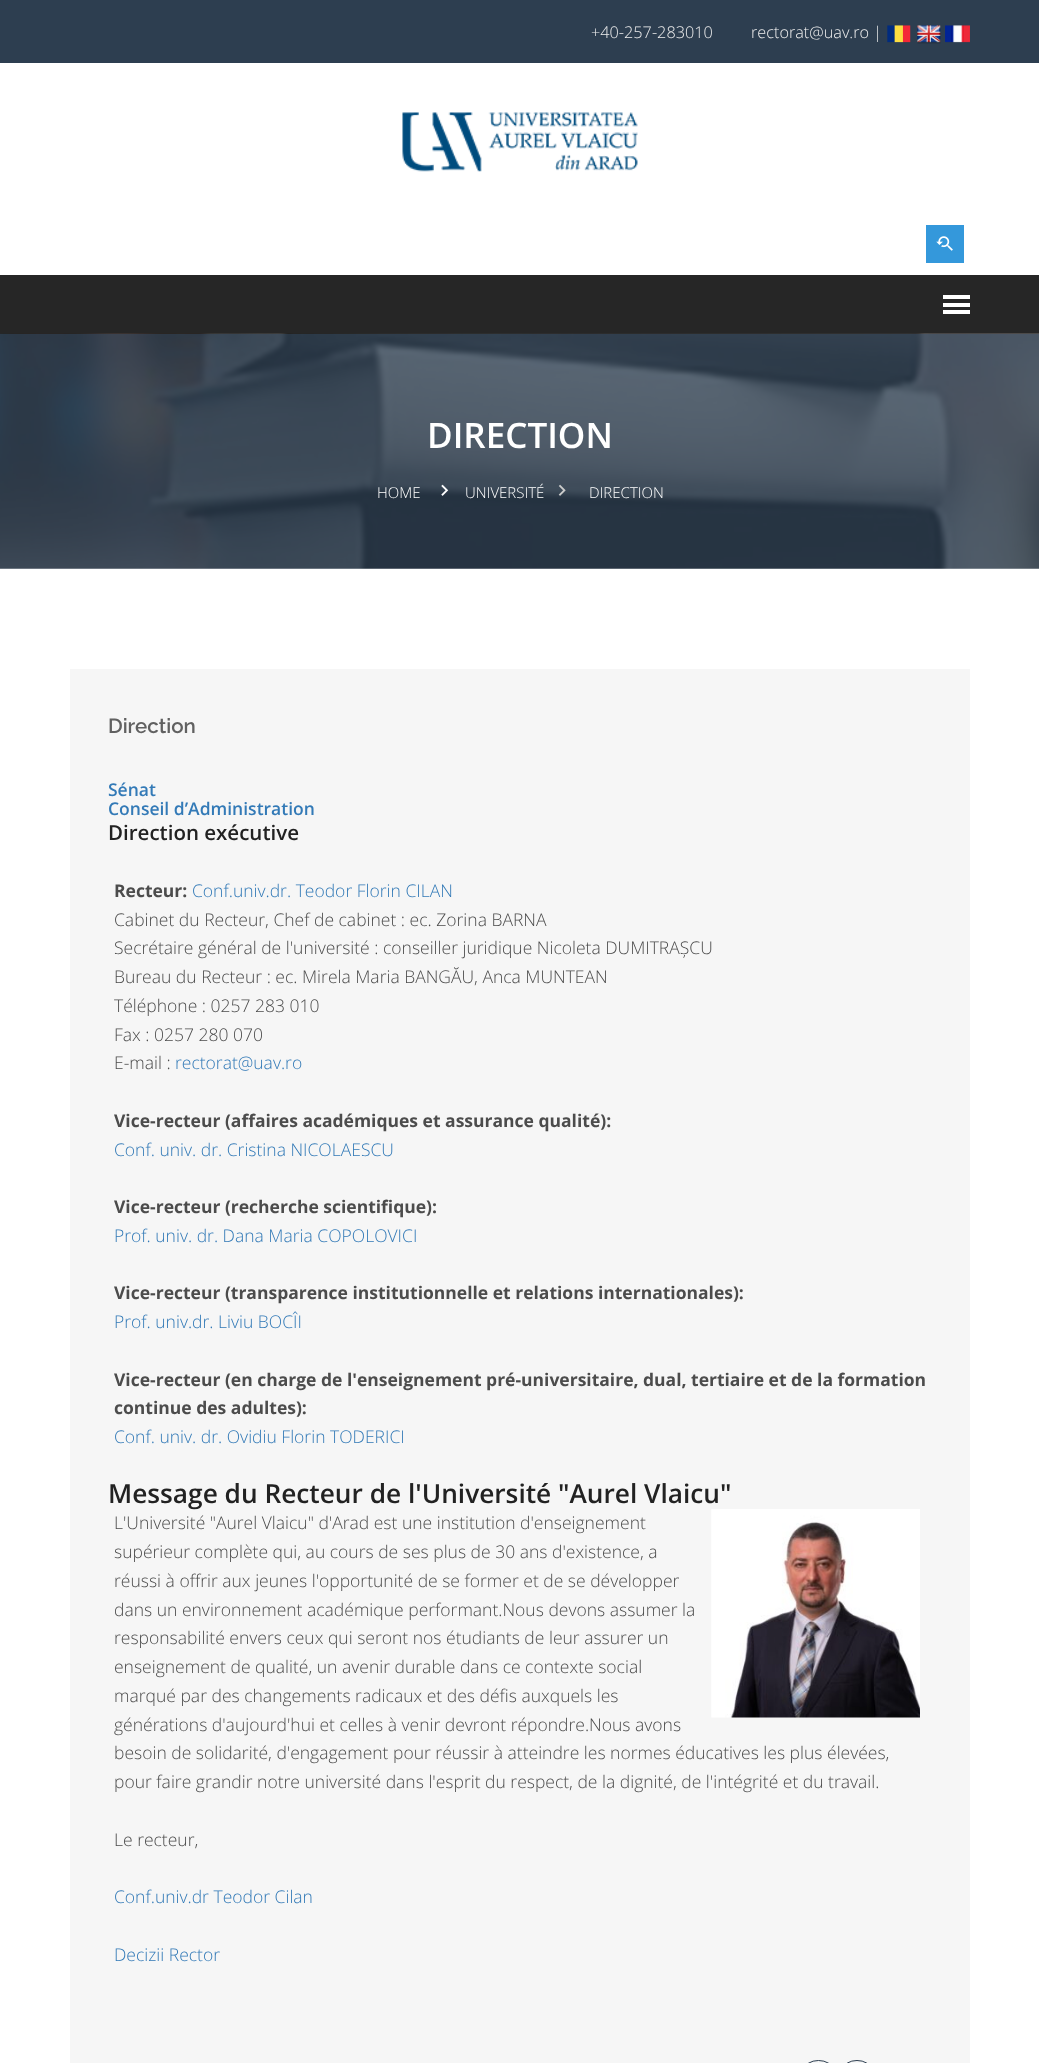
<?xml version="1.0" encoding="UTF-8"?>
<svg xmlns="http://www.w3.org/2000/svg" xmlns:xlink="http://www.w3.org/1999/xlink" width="1039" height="2063">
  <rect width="100%" height="100%" fill="#ffffff" />
  <rect width="1039" height="63" fill="#2d3e50" />
  <image x="887" y="25" width="24" height="18" xlink:href="image1.png" />
  <image x="917" y="25" width="24" height="19" xlink:href="image2.png" />
  <image x="945" y="25" width="25" height="18" xlink:href="image3.png" />
  <image x="402" y="112" width="236" height="60" xlink:href="image4.png" />
  <rect x="926" y="225" width="38" height="38" fill="#3498db" />
  <image x="936" y="236" width="17" height="15" xlink:href="image5.png" />
  <rect y="275" width="1039" height="59" fill="#262626" />
  <rect x="943" y="295" width="27" height="4" fill="#ffffff" />
  <rect x="943" y="303" width="27" height="4" fill="#ffffff" />
  <rect x="943" y="310" width="27" height="4" fill="#ffffff" />
  <image x="0" y="333" width="1039" height="236" xlink:href="image6.png" />
  <image x="441" y="484" width="8" height="12" xlink:href="image7.png" />
  <image x="558" y="484" width="8" height="12" xlink:href="image8.png" />
  <rect x="70" y="669" width="900" height="1394" fill="#f6f6f6" />
  <image x="711" y="1509" width="209" height="209" xlink:href="image9.png" />
  <rect x="804.5" y="2060.5" width="28" height="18" rx="14" fill="none" stroke="#2d3e50" />
  <rect x="843.5" y="2060.5" width="27" height="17" rx="13.5" fill="none" stroke="#2d3e50" />
  <text x="591" y="38" style="font-family: Open Sans; font-size: 16.25px; font-weight: 300; fill: #ededed">+40-257-283010</text>
  <text x="751" y="38" style="font-family: Open Sans; font-size: 16.25px; font-weight: 300; fill: #ededed">rectorat@uav.ro |</text>
  <text x="427" y="448" style="font-family: Open Sans; font-size: 35px; font-weight: 600; fill: #ffffff">DIRECTION</text>
  <text x="377" y="498" style="font-family: Open Sans; font-size: 15px; font-weight: 300; fill: #ffffff">HOME</text>
  <text x="465" y="498" style="font-family: Open Sans; font-size: 15px; font-weight: 300; fill: #ffffff">UNIVERSITÉ</text>
  <text x="589" y="498" style="font-family: Open Sans; font-size: 15px; font-weight: 300; fill: #ffffff">DIRECTION</text>
  <text x="108" y="733" style="font-family: Raleway; font-size: 20.5px; font-weight: 600; fill: #616161">Direction</text>
  <text x="108" y="796" style="font-family: Open Sans; font-size: 17.5px; font-weight: 600; fill: #337ab7">Sénat</text>
  <text x="108" y="815" style="font-family: Open Sans; font-size: 17.5px; font-weight: 600; fill: #337ab7">Conseil d’Administration</text>
  <text x="108" y="840" style="font-family: Open Sans; font-size: 20.5px; font-weight: 600; fill: #222222">Direction exécutive</text>
  <text x="114" y="897" style="font-family: Open Sans; font-size: 17.5px; font-weight: bold; fill: #4c4c4c">Recteur:</text>
  <text x="192" y="897" style="font-family: Open Sans; font-size: 17.5px; font-weight: 300; fill: #337ab7">Conf.univ.dr. Teodor Florin CILAN</text>
  <text x="114" y="926" style="font-family: Open Sans; font-size: 17.5px; font-weight: 300; fill: #4c4c4c">Cabinet du Recteur, Chef de cabinet : ec. Zorina BARNA</text>
  <text x="114" y="954" style="font-family: Open Sans; font-size: 17.5px; font-weight: 300; fill: #4c4c4c">Secrétaire général de l'université : conseiller juridique Nicoleta DUMITRAȘCU</text>
  <text x="114" y="983" style="font-family: Open Sans; font-size: 17.5px; font-weight: 300; fill: #4c4c4c">Bureau du Recteur : ec. Mirela Maria BANGĂU, Anca MUNTEAN</text>
  <text x="114" y="1012" style="font-family: Open Sans; font-size: 17.5px; font-weight: 300; fill: #4c4c4c">Téléphone : 0257 283 010</text>
  <text x="114" y="1041" style="font-family: Open Sans; font-size: 17.5px; font-weight: 300; fill: #4c4c4c">Fax : 0257 280 070</text>
  <text x="114" y="1069" style="font-family: Open Sans; font-size: 17.5px; font-weight: 300; fill: #4c4c4c">E-mail :</text>
  <text x="175" y="1069" style="font-family: Open Sans; font-size: 17.5px; font-weight: 300; fill: #337ab7">rectorat@uav.ro</text>
  <text x="114" y="1127" style="font-family: Open Sans; font-size: 17.5px; font-weight: bold; fill: #4c4c4c">Vice-recteur (affaires académiques et assurance qualité):</text>
  <text x="114" y="1156" style="font-family: Open Sans; font-size: 17.5px; font-weight: 300; fill: #337ab7">Conf. univ. dr. Cristina NICOLAESCU</text>
  <text x="114" y="1213" style="font-family: Open Sans; font-size: 17.5px; font-weight: bold; fill: #4c4c4c">Vice-recteur (recherche scientifique):</text>
  <text x="114" y="1242" style="font-family: Open Sans; font-size: 17.5px; font-weight: 300; fill: #337ab7">Prof. univ. dr. Dana Maria COPOLOVICI</text>
  <text x="114" y="1299" style="font-family: Open Sans; font-size: 17.5px; font-weight: bold; fill: #4c4c4c">Vice-recteur (transparence institutionnelle et relations internationales):</text>
  <text x="114" y="1328" style="font-family: Open Sans; font-size: 17.5px; font-weight: 300; fill: #337ab7">Prof. univ.dr. Liviu BOCÎI</text>
  <text x="114" y="1386" style="font-family: Open Sans; font-size: 17.5px; font-weight: bold; fill: #4c4c4c">Vice-recteur (en charge de l'enseignement pré-universitaire, dual, tertiaire et de la formation</text>
  <text x="114" y="1414" style="font-family: Open Sans; font-size: 17.5px; font-weight: bold; fill: #4c4c4c">continue des adultes):</text>
  <text x="114" y="1443" style="font-family: Open Sans; font-size: 17.5px; font-weight: 300; fill: #337ab7">Conf. univ. dr. Ovidiu Florin TODERICI</text>
  <text x="108" y="1503" style="font-family: Open Sans; font-size: 26.25px; font-weight: 600; fill: #222222">Message du Recteur de l'Université "Aurel Vlaicu"</text>
  <text x="114" y="1529" style="font-family: Open Sans; font-size: 17.5px; font-weight: 300; fill: #4c4c4c">L'Université "Aurel Vlaicu" d'Arad est une institution d'enseignement</text>
  <text x="114" y="1558" style="font-family: Open Sans; font-size: 17.5px; font-weight: 300; fill: #4c4c4c">supérieur complète qui, au cours de ses plus de 30 ans d'existence, a</text>
  <text x="114" y="1587" style="font-family: Open Sans; font-size: 17.5px; font-weight: 300; fill: #4c4c4c">réussi à offrir aux jeunes l'opportunité de se former et de se développer</text>
  <text x="114" y="1616" style="font-family: Open Sans; font-size: 17.5px; font-weight: 300; fill: #4c4c4c">dans un environnement académique performant.Nous devons assumer la</text>
  <text x="114" y="1644" style="font-family: Open Sans; font-size: 17.5px; font-weight: 300; fill: #4c4c4c">responsabilité envers ceux qui seront nos étudiants de leur assurer un</text>
  <text x="114" y="1673" style="font-family: Open Sans; font-size: 17.5px; font-weight: 300; fill: #4c4c4c">enseignement de qualité, un avenir durable dans ce contexte social</text>
  <text x="114" y="1702" style="font-family: Open Sans; font-size: 17.5px; font-weight: 300; fill: #4c4c4c">marqué par des changements radicaux et des défis auxquels les</text>
  <text x="114" y="1731" style="font-family: Open Sans; font-size: 17.5px; font-weight: 300; fill: #4c4c4c">générations d'aujourd'hui et celles à venir devront répondre.Nous avons</text>
  <text x="114" y="1759" style="font-family: Open Sans; font-size: 17.5px; font-weight: 300; fill: #4c4c4c">besoin de solidarité, d'engagement pour réussir à atteindre les normes éducatives les plus élevées,</text>
  <text x="114" y="1788" style="font-family: Open Sans; font-size: 17.5px; font-weight: 300; fill: #4c4c4c">pour faire grandir notre université dans l'esprit du respect, de la dignité, de l'intégrité et du travail.</text>
  <text x="114" y="1846" style="font-family: Open Sans; font-size: 17.5px; font-weight: 300; fill: #4c4c4c">Le recteur,</text>
  <text x="114" y="1903" style="font-family: Open Sans; font-size: 17.5px; font-weight: 300; fill: #337ab7">Conf.univ.dr Teodor Cilan</text>
  <text x="114" y="1961" style="font-family: Open Sans; font-size: 17.5px; font-weight: 300; fill: #337ab7">Decizii Rector</text>
</svg>
